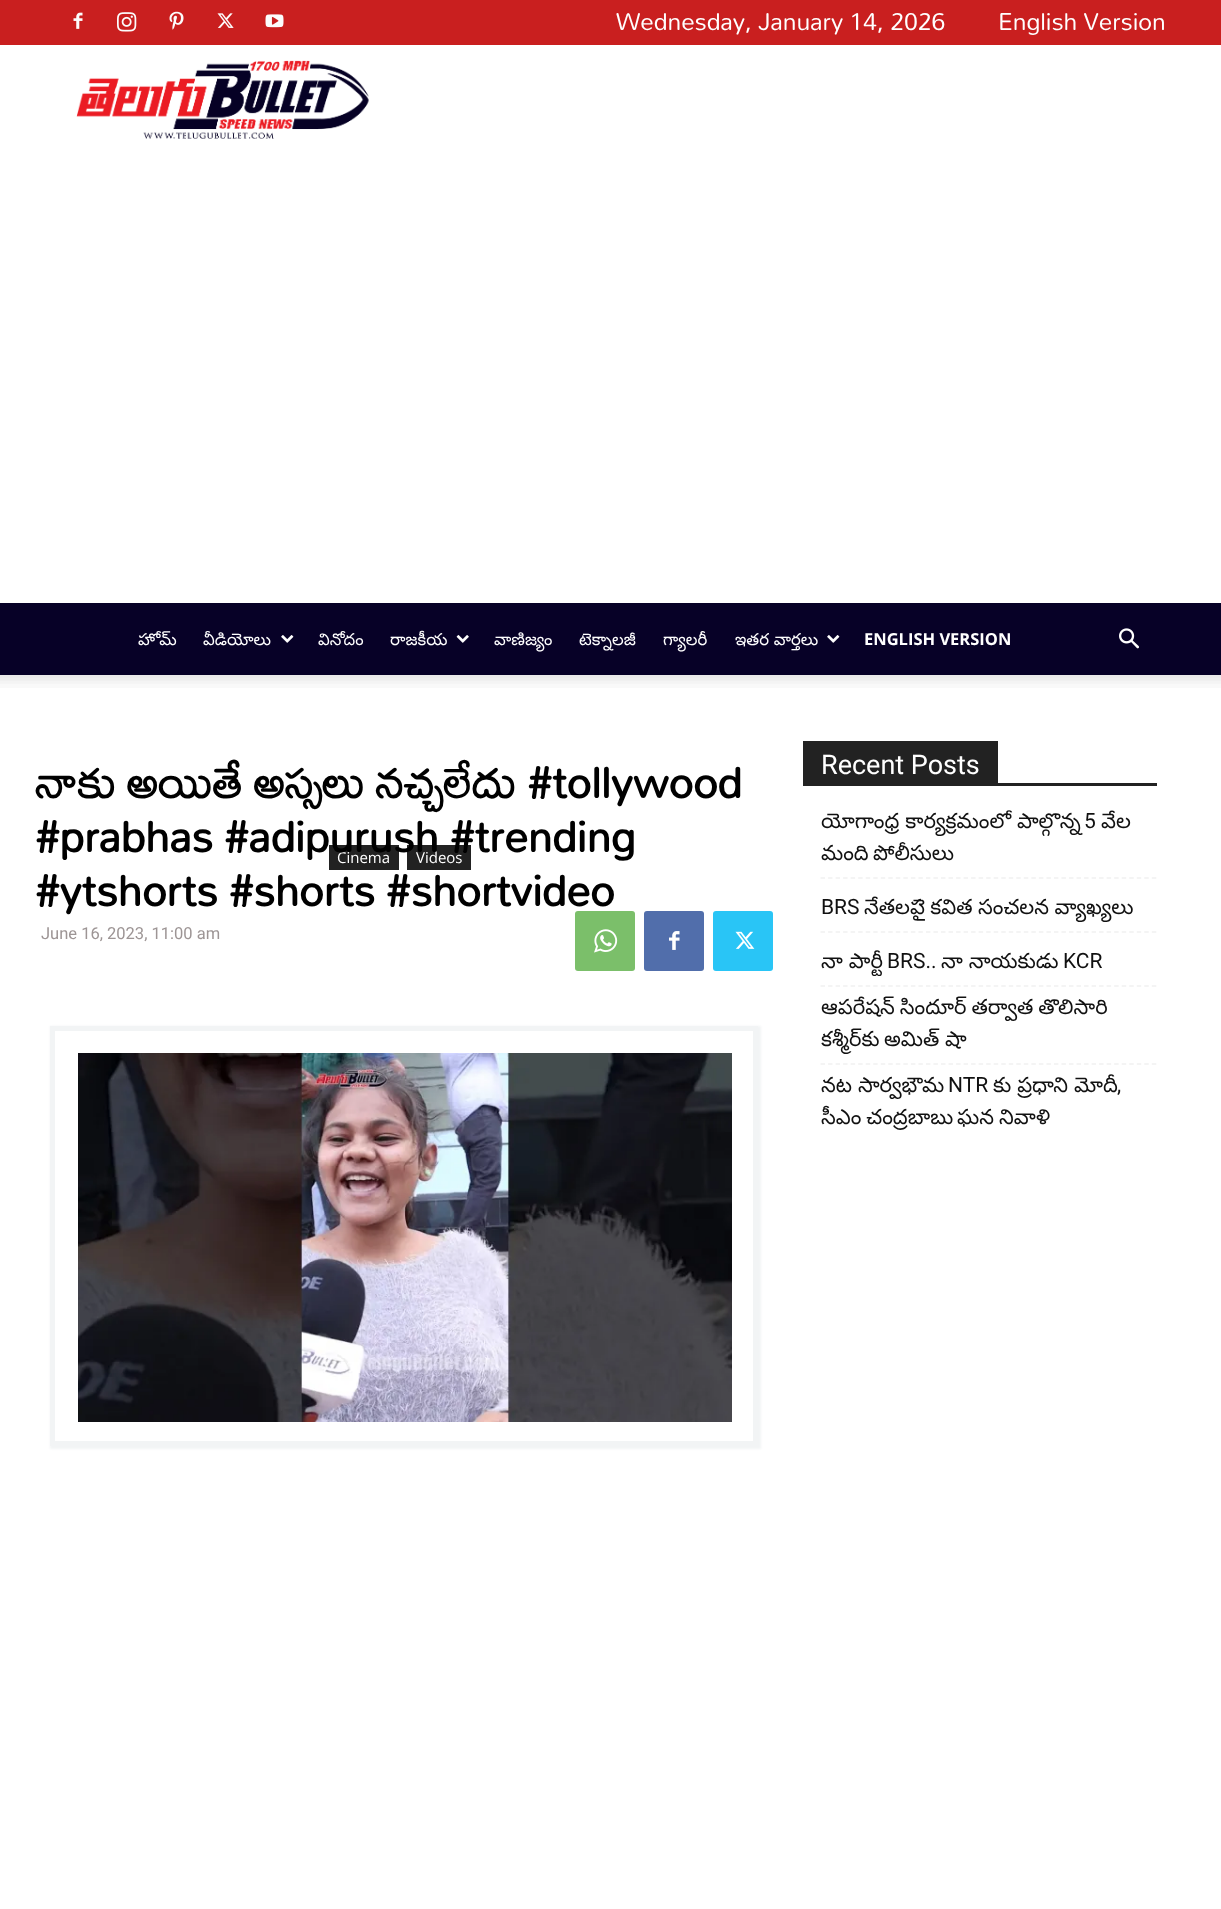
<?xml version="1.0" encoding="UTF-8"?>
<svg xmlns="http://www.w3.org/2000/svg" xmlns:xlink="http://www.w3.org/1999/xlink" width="1221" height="1909">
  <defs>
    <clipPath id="clip1"><path d="M 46 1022 h 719 v 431 h -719 z m 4 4 h 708 v 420 h -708 z" clip-rule="evenodd" /></clipPath>
  </defs>
  <rect width="100%" height="100%" fill="#ffffff" />
  <rect width="1221" height="45" fill="#c91f1f" />
  <image x="73" y="12" width="10" height="17" xlink:href="image1.png" />
  <image x="117" y="12" width="20" height="20" xlink:href="image2.png" />
  <image x="169" y="11" width="15" height="19" xlink:href="image3.png" />
  <image x="217" y="13" width="17" height="15" xlink:href="image4.png" />
  <image x="265" y="14" width="19" height="14" xlink:href="image5.png" />
  <image x="76" y="60" width="293" height="79" xlink:href="image6.png" />
  <rect y="603" width="1221" height="72" fill="#070127" />
  <image x="281" y="635" width="13" height="8" xlink:href="image7.png" />
  <image x="456" y="635" width="13" height="8" xlink:href="image8.png" />
  <image x="827" y="635" width="13" height="8" xlink:href="image7.png" />
  <image x="1119" y="628" width="20" height="21" xlink:href="image9.png" />
  <image x="0" y="675" width="1221" height="13" xlink:href="image10.png" />
  <rect x="329" y="845" width="70" height="25" fill="#222222" />
  <rect x="407" y="845" width="64" height="25" fill="#222222" />
  <rect x="644" y="911" width="60" height="60" rx="3" fill="#516eab" />
  <image x="669" y="931" width="11" height="19" xlink:href="image12.png" />
  <rect x="713" y="911" width="60" height="60" rx="3" fill="#29c5f6" />
  <image x="735" y="931" width="20" height="18" xlink:href="image13.png" />
  <g clip-path="url(#clip1)">
    <rect x="50" y="1026" width="711" height="423" fill="#f2f4f5" filter="blur(1px)" />
  </g>
  <rect x="52.5" y="1028.5" width="703" height="415" fill="none" stroke="#f2f4f5" stroke-width="5" />
  <image x="78" y="1053" width="654" height="369" xlink:href="image14.png" />
  <rect x="803" y="783" width="354" height="3" fill="#222222" />
  <rect x="803" y="741" width="195" height="42" fill="#222222" />
  <path d="M 820.5 878 h 336" fill="none" stroke="#f1f1f1" stroke-width="1.5" stroke-dasharray="4.5 3.03" />
  <path d="M 820.5 932 h 336" fill="none" stroke="#f1f1f1" stroke-width="1.5" stroke-dasharray="4.5 3.03" />
  <path d="M 820.5 986 h 336" fill="none" stroke="#f1f1f1" stroke-width="1.5" stroke-dasharray="4.5 3.03" />
  <path d="M 820.5 1064 h 336" fill="none" stroke="#f1f1f1" stroke-width="1.5" stroke-dasharray="4.5 3.03" />
  <text x="616" y="30" style="font-family: Mallanna; font-size: 27px; fill: #ffffff">Wednesday, January 14, 2026</text>
  <text x="998" y="30" style="font-family: Mallanna; font-size: 27px; fill: #ffffff">English Version</text>
  <text x="138" y="645" style="font-family: Noto Sans Telugu; font-size: 16.5px; fill: #ffffff">హోమ్</text>
  <text x="203" y="645" style="font-family: Noto Sans Telugu; font-size: 16.5px; fill: #ffffff">వీడియోలు</text>
  <text x="318" y="645" style="font-family: Noto Sans Telugu; font-size: 16.5px; fill: #ffffff">వినోదం</text>
  <text x="390" y="645" style="font-family: Noto Sans Telugu; font-size: 16.5px; fill: #ffffff">రాజకీయ</text>
  <text x="494" y="645" style="font-family: Noto Sans Telugu; font-size: 16.5px; fill: #ffffff">వాణిజ్యం</text>
  <text x="579" y="645" style="font-family: Noto Sans Telugu; font-size: 16.5px; fill: #ffffff">టెక్నాలజీ</text>
  <text x="663" y="645" style="font-family: Noto Sans Telugu; font-size: 16.5px; fill: #ffffff">గ్యాలరీ</text>
  <text x="735" y="645" style="font-family: Noto Sans Telugu; font-size: 16.5px; fill: #ffffff">ఇతర వార్తలు</text>
  <text x="864" y="645" style="font-family: Open Sans; font-size: 16.5px; font-weight: bold; fill: #ffffff">ENGLISH VERSION</text>
  <text x="35" y="798" style="font-family: Mallanna; font-size: 48px; font-weight: bold; fill: #000000">నాకు అయితే అస్సలు నచ్చలేదు #tollywood</text>
  <text x="35" y="906" style="font-family: Mallanna; font-size: 48px; font-weight: bold; fill: #000000">#ytshorts #shorts #shortvideo</text>
  <text x="41" y="939" style="font-family: Roboto; font-size: 16.5px; fill: #9d9595">June 16, 2023, 11:00 am</text>
  <text x="337" y="863" style="font-family: Open Sans; font-size: 15px; fill: #ffffff">Cinema</text>
  <text x="416" y="863" style="font-family: Open Sans; font-size: 15px; fill: #ffffff">Videos</text>
  <text x="35" y="852" style="font-family: Mallanna; font-size: 48px; font-weight: bold; fill: #000000">#prabhas #adipurush #trending</text>
  <rect x="575" y="911" width="60" height="60" rx="3" fill="#7bbf6a" />
  <image x="594" y="929" width="24" height="24" xlink:href="image11.png" />
  <text x="821" y="774" style="font-family: Roboto; font-size: 27px; fill: #ffffff">Recent Posts</text>
  <text x="821" y="828" style="font-family: Noto Sans Telugu; font-size: 21px; fill: #111111">యోగాంధ్ర కార్య‌క్ర‌మంలో పాల్గొన్న</text>
  <text x="1084" y="828" style="font-family: Roboto; font-size: 21px; fill: #111111">5</text>
  <text x="1101" y="828" style="font-family: Noto Sans Telugu; font-size: 21px; fill: #111111">వేల</text>
  <text x="821" y="860" style="font-family: Noto Sans Telugu; font-size: 21px; fill: #111111">మంది</text>
  <text x="873" y="860" style="font-family: Noto Sans Telugu; font-size: 21px; fill: #111111">పోలీసులు</text>
  <text x="821" y="914" style="font-family: Roboto; font-size: 21px; fill: #111111">BRS</text>
  <text x="864" y="914" word-spacing="-0.5" style="font-family: Noto Sans Telugu; font-size: 21px; fill: #111111">నేతలపై కవిత సంచలన వ్యాఖ్యలు</text>
  <text x="821" y="968" style="font-family: Noto Sans Telugu; font-size: 21px; fill: #111111">నా పార్టీ</text>
  <text x="887" y="968" style="font-family: Roboto; font-size: 21px; fill: #111111">BRS..</text>
  <text x="941" y="968" style="font-family: Noto Sans Telugu; font-size: 21px; fill: #111111">నా నాయకుడు</text>
  <text x="1063" y="968" style="font-family: Roboto; font-size: 21px; fill: #111111">KCR</text>
  <text x="821" y="1014" word-spacing="-1" style="font-family: Noto Sans Telugu; font-size: 21px; fill: #111111">ఆపరేషన్ సిందూర్ తర్వాత తొలిసారి</text>
  <text x="821" y="1046" style="font-family: Noto Sans Telugu; font-size: 21px; fill: #111111">కశ్మీర్‌కు</text>
  <text x="884" y="1046" style="font-family: Noto Sans Telugu; font-size: 21px; fill: #111111">అమిత్</text>
  <text x="945" y="1046" style="font-family: Noto Sans Telugu; font-size: 21px; fill: #111111">షా</text>
  <text x="821" y="1092" style="font-family: Noto Sans Telugu; font-size: 21px; fill: #111111">నట సార్వభౌమ</text>
  <text x="948" y="1092" style="font-family: Roboto; font-size: 21px; fill: #111111">NTR</text>
  <text x="993" y="1092" style="font-family: Noto Sans Telugu; font-size: 21px; fill: #111111">కు ప్రధాని మోదీ</text>
  <text x="1117" y="1092" style="font-family: Roboto; font-size: 21px; fill: #111111">,</text>
  <text x="821" y="1124" word-spacing="-1" style="font-family: Noto Sans Telugu; font-size: 21px; fill: #111111">సీఎం చంద్రబాబు</text>
  <text x="957" y="1124" style="font-family: Noto Sans Telugu; font-size: 21px; fill: #111111">ఘన</text>
  <text x="999" y="1124" style="font-family: Noto Sans Telugu; font-size: 21px; fill: #111111">నివాళి</text>
</svg>
